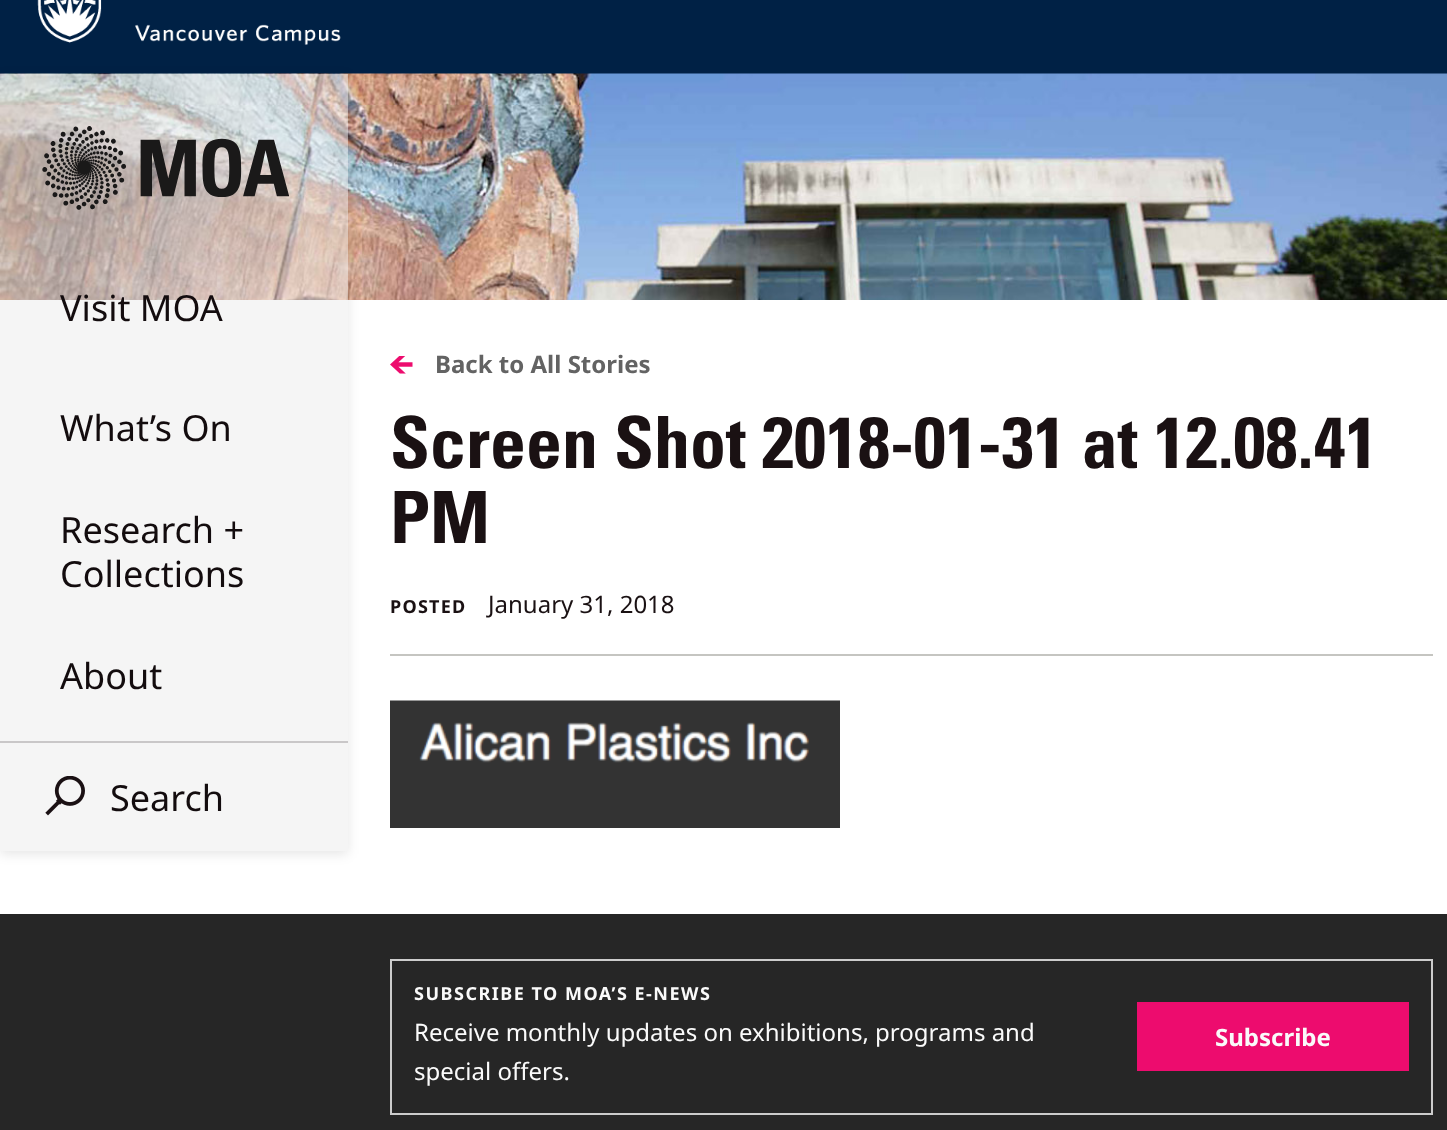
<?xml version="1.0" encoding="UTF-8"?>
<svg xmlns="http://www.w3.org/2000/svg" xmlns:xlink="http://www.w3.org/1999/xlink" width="1447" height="1130">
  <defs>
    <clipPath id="clip1"><path d="M 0 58 h 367 v 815 h -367 z m 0 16 h 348 v 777 h -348 z" clip-rule="evenodd" /></clipPath>
  </defs>
  <rect width="100%" height="100%" fill="#ffffff" />
  <rect width="1447" height="74" fill="#002145" />
  <image x="37" y="0" width="304" height="45" xlink:href="image1.png" />
  <image x="0" y="73" width="1447" height="227" xlink:href="image2.png" />
  <g clip-path="url(#clip1)">
    <rect y="77" width="348" height="777" fill="#000000" fill-opacity="0.1" filter="blur(6px)" />
  </g>
  <rect y="74" width="348" height="777" fill="#ebebeb" fill-opacity="0.5" />
  <image x="42" y="126" width="247" height="84" xlink:href="image3.png" />
  <rect y="741" width="348" height="2" fill="#c9c7c8" />
  <image x="45" y="776" width="40" height="40" xlink:href="image4.png" />
  <image x="390" y="356" width="23" height="18" xlink:href="image5.png" />
  <rect x="390" y="654" width="1043" height="2" fill="#c5c5c1" />
  <image x="390" y="700" width="450" height="128" xlink:href="image6.png" />
  <rect y="914" width="1447" height="216" fill="#262626" />
  <rect x="391" y="960" width="1041" height="154" fill="none" stroke="#cccccc" stroke-width="2" />
  <rect x="1137" y="1002" width="272" height="69" fill="#ed0c6e" />
  <text x="60" y="321" style="font-family: Noto Sans; font-size: 36px; fill: #130c0e">Visit MOA</text>
  <text x="60" y="441" style="font-family: Noto Sans; font-size: 36px; fill: #130c0e">What’s On</text>
  <text x="60" y="543" style="font-family: Noto Sans; font-size: 36px; fill: #130c0e">Research +</text>
  <text x="60" y="587" style="font-family: Noto Sans; font-size: 36px; fill: #130c0e">Collections</text>
  <text x="60" y="689" style="font-family: Noto Sans; font-size: 36px; fill: #130c0e">About</text>
  <text x="110" y="811" style="font-family: Noto Sans; font-size: 36px; fill: #130c0e">Search</text>
  <text x="435" y="373" style="font-family: Noto Sans; font-size: 24px; font-weight: bold; fill: #636363">Back to All Stories</text>
  <text x="390" y="468" style="font-family: Univers; font-size: 72px; font-weight: bold; fill: #1a1113">Screen Shot 2018-01-31 at 12.08.41</text>
  <text x="390" y="543" style="font-family: Univers; font-size: 72px; font-weight: bold; fill: #1a1113">PM</text>
  <text x="390" y="613" style="font-family: Noto Sans; font-size: 18px; font-weight: bold; letter-spacing: 1.25px; fill: #1a1113">POSTED</text>
  <text x="488" y="613" style="font-family: Noto Sans; font-size: 24px; fill: #1a1113">January 31, 2018</text>
  <text x="414" y="1000" style="font-family: Noto Sans; font-size: 18px; font-weight: bold; letter-spacing: 1.5px; fill: #fafafa">SUBSCRIBE TO MOA’S E-NEWS</text>
  <text x="414" y="1041" style="font-family: Noto Sans; font-size: 24px; fill: #fafafa">Receive monthly updates on exhibitions, programs and</text>
  <text x="414" y="1080" style="font-family: Noto Sans; font-size: 24px; fill: #fafafa">special offers.</text>
  <text x="1215" y="1046" style="font-family: Noto Sans; font-size: 24px; font-weight: bold; fill: #fafafa">Subscribe</text>
</svg>
